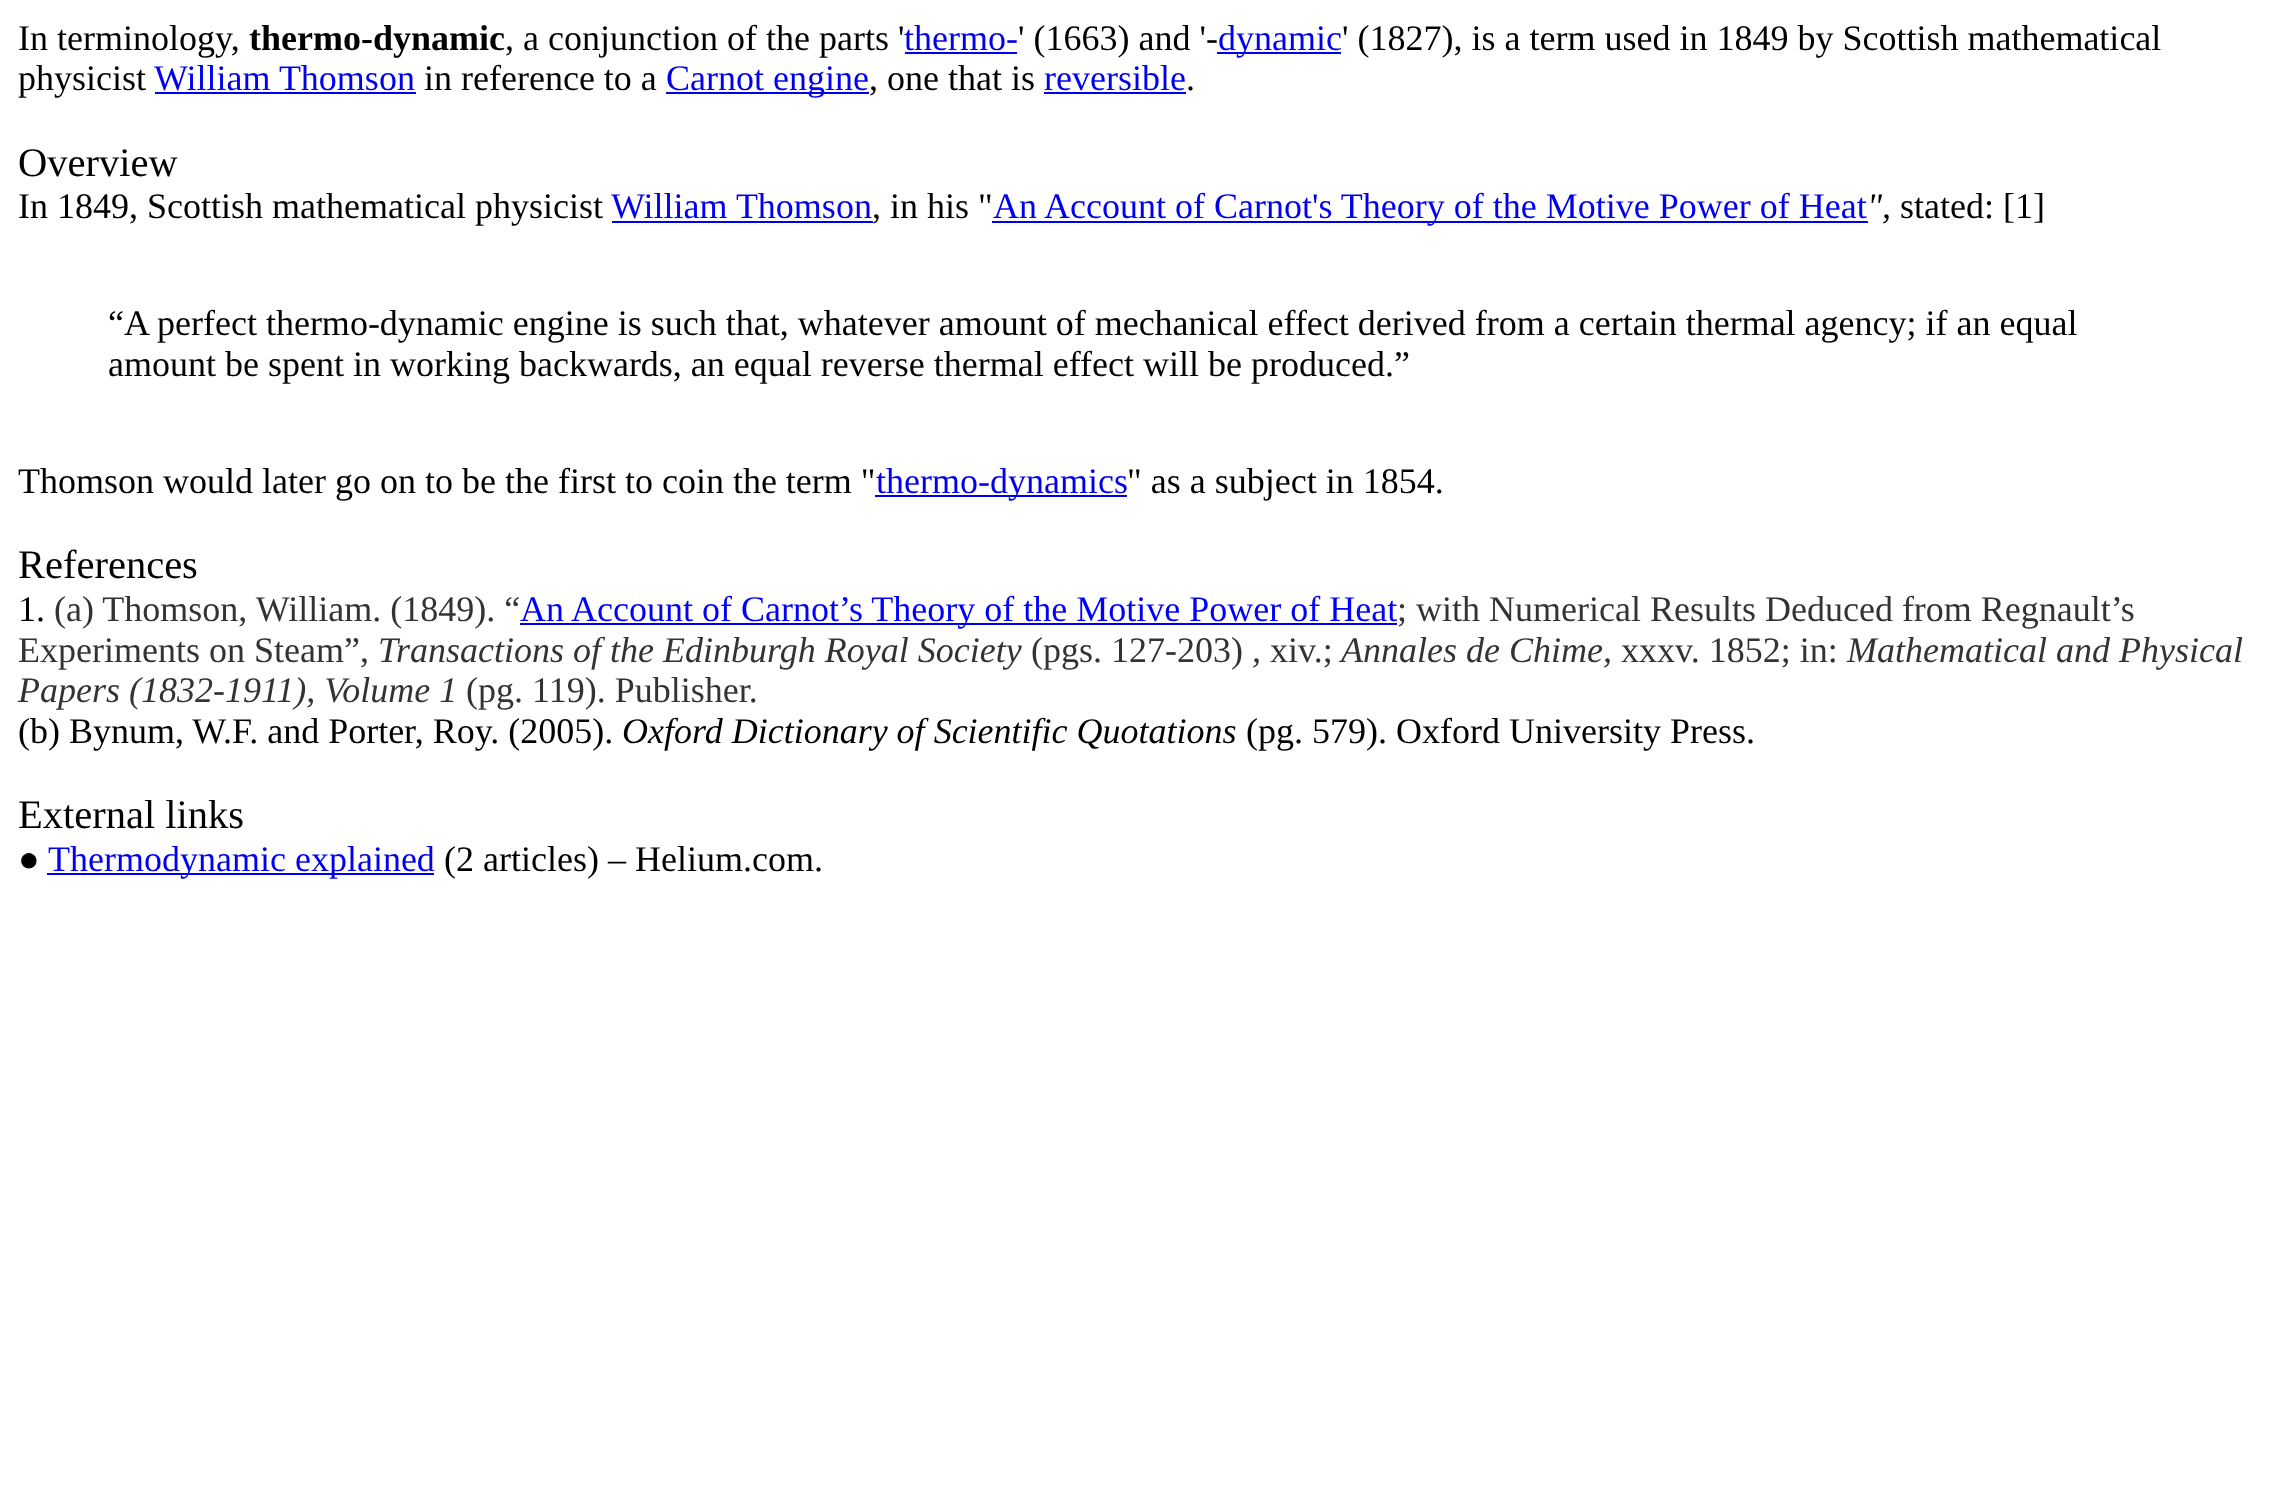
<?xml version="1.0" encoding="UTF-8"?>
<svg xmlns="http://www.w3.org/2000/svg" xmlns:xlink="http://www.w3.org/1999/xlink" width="2277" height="1502">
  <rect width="100%" height="100%" fill="#ffffff" />
  <rect x="905" y="52" width="112" height="2" fill="#0000ee" />
  <rect x="1217" y="52" width="124" height="2" fill="#0000ee" />
  <rect x="155" y="92" width="261" height="2" fill="#0000ee" />
  <rect x="666" y="92" width="203" height="2" fill="#0000ee" />
  <rect x="1044" y="92" width="142" height="2" fill="#0000ee" />
  <rect x="612" y="221" width="261" height="2" fill="#0000ee" />
  <rect x="992" y="221" width="876" height="2" fill="#0000ee" />
  <rect x="875" y="495" width="252" height="2" fill="#0000ee" />
  <rect x="520" y="623" width="877" height="2" fill="#0000ee" />
  <rect x="47" y="873" width="387" height="2" fill="#0000ee" />
  <text x="18" y="50" style="font-family: Liberation Serif; font-size: 36px; fill: #000000">In terminology,</text>
  <text x="249" y="50" style="font-family: Liberation Serif; font-size: 36px; font-weight: bold; fill: #000000">thermo-dynamic</text>
  <text x="505" y="50" style="font-family: Liberation Serif; font-size: 36px; fill: #000000">, a conjunction of the parts '</text>
  <text x="904" y="50" style="font-family: Liberation Serif; font-size: 36px; fill: #0000ee">thermo-</text>
  <text x="1018" y="50" style="font-family: Liberation Serif; font-size: 36px; fill: #000000">' (1663) and '-</text>
  <text x="1218" y="50" style="font-family: Liberation Serif; font-size: 36px; fill: #0000ee">dynamic</text>
  <text x="1342" y="50" style="font-family: Liberation Serif; font-size: 36px; fill: #000000">' (1827), is a term used in 1849 by Scottish mathematical</text>
  <text x="18" y="90" style="font-family: Liberation Serif; font-size: 36px; fill: #000000">physicist</text>
  <text x="154" y="90" style="font-family: Liberation Serif; font-size: 36px; fill: #0000ee">William Thomson</text>
  <text x="424" y="90" style="font-family: Liberation Serif; font-size: 36px; fill: #000000">in reference to a</text>
  <text x="666" y="90" style="font-family: Liberation Serif; font-size: 36px; fill: #0000ee">Carnot engine</text>
  <text x="869" y="90" style="font-family: Liberation Serif; font-size: 36px; fill: #000000">, one that is</text>
  <text x="1044" y="90" style="font-family: Liberation Serif; font-size: 36px; fill: #0000ee">reversible</text>
  <text x="1186" y="90" style="font-family: Liberation Serif; font-size: 36px; fill: #000000">.</text>
  <text x="18" y="176" style="font-family: Liberation Serif; font-size: 40.5px; fill: #000000">Overview</text>
  <text x="18" y="218" style="font-family: Liberation Serif; font-size: 36px; fill: #000000">In 1849, Scottish mathematical physicist</text>
  <text x="611" y="218" style="font-family: Liberation Serif; font-size: 36px; fill: #0000ee">William Thomson</text>
  <text x="872" y="218" style="font-family: Liberation Serif; font-size: 36px; fill: #000000">, in his "</text>
  <text x="993" y="218" style="font-family: Liberation Serif; font-size: 36px; fill: #0000ee">An Account of Carnot's Theory of the Motive Power of Heat</text>
  <text x="1867" y="218" style="font-family: Liberation Serif; font-size: 36px; font-style: italic; fill: #000000">",</text>
  <text x="1900" y="218" style="font-family: Liberation Serif; font-size: 36px; fill: #000000">stated: [1]</text>
  <text x="108" y="335" style="font-family: Liberation Serif; font-size: 36px; fill: #000000">“A perfect thermo-dynamic engine is such that, whatever amount of mechanical effect derived from a certain thermal agency; if an equal</text>
  <text x="108" y="376" style="font-family: Liberation Serif; font-size: 36px; fill: #000000">amount be spent in working backwards, an equal reverse thermal effect will be produced.”</text>
  <text x="18" y="493" style="font-family: Liberation Serif; font-size: 36px; fill: #000000">Thomson would later go on to be the first to coin the term "</text>
  <text x="876" y="493" style="font-family: Liberation Serif; font-size: 36px; fill: #0000ee">thermo-dynamics</text>
  <text x="1127" y="493" style="font-family: Liberation Serif; font-size: 36px; fill: #000000">" as a subject in 1854.</text>
  <text x="18" y="578" style="font-family: Liberation Serif; font-size: 40.5px; fill: #000000">References</text>
  <text x="18" y="621" style="font-family: Liberation Serif; font-size: 36px; fill: #000000">1.</text>
  <text x="54" y="621" style="font-family: Liberation Serif; font-size: 36px; fill: #333333">(a) Thomson, William. (1849). “</text>
  <text x="520" y="621" style="font-family: Liberation Serif; font-size: 36px; fill: #0000ff">An Account of Carnot’s Theory of the Motive Power of Heat</text>
  <text x="1397" y="621" style="font-family: Liberation Serif; font-size: 36px; fill: #333333">; with Numerical Results Deduced from Regnault’s</text>
  <text x="18" y="662" style="font-family: Liberation Serif; font-size: 36px; fill: #333333">Experiments on Steam”,</text>
  <text x="378" y="662" style="font-family: Liberation Serif; font-size: 36px; font-style: italic; fill: #333333">Transactions of the Edinburgh Royal Society</text>
  <text x="1031" y="662" style="font-family: Liberation Serif; font-size: 36px; fill: #333333">(pgs. 127-203)</text>
  <text x="1252" y="662" style="font-family: Liberation Serif; font-size: 36px; font-style: italic; fill: #333333">,</text>
  <text x="1270" y="662" style="font-family: Liberation Serif; font-size: 36px; fill: #333333">xiv.;</text>
  <text x="1341" y="662" style="font-family: Liberation Serif; font-size: 36px; font-style: italic; fill: #333333">Annales de Chime,</text>
  <text x="1621" y="662" style="font-family: Liberation Serif; font-size: 36px; fill: #333333">xxxv. 1852; in:</text>
  <text x="1847" y="662" style="font-family: Liberation Serif; font-size: 36px; font-style: italic; fill: #333333">Mathematical and Physical</text>
  <text x="18" y="702" style="font-family: Liberation Serif; font-size: 36px; font-style: italic; fill: #333333">Papers (1832-1911), Volume 1</text>
  <text x="466" y="702" style="font-family: Liberation Serif; font-size: 36px; fill: #333333">(pg. 119). Publisher.</text>
  <text x="18" y="743" style="font-family: Liberation Serif; font-size: 36px; fill: #000000">(b) Bynum, W.F. and Porter, Roy. (2005).</text>
  <text x="622" y="743" style="font-family: Liberation Serif; font-size: 36px; font-style: italic; fill: #000000">Oxford Dictionary of Scientific Quotations</text>
  <text x="1246" y="743" style="font-family: Liberation Serif; font-size: 36px; fill: #000000">(pg. 579). Oxford University Press.</text>
  <text x="18" y="828" style="font-family: Liberation Serif; font-size: 40.5px; fill: #000000">External links</text>
  <text x="18" y="871" style="font-family: Liberation Serif; font-size: 36px; fill: #000000">●</text>
  <text x="48" y="871" style="font-family: Liberation Serif; font-size: 36px; fill: #0000ee">Thermodynamic explained</text>
  <text x="444" y="871" style="font-family: Liberation Serif; font-size: 36px; fill: #000000">(2 articles) – Helium.com.</text>
</svg>
